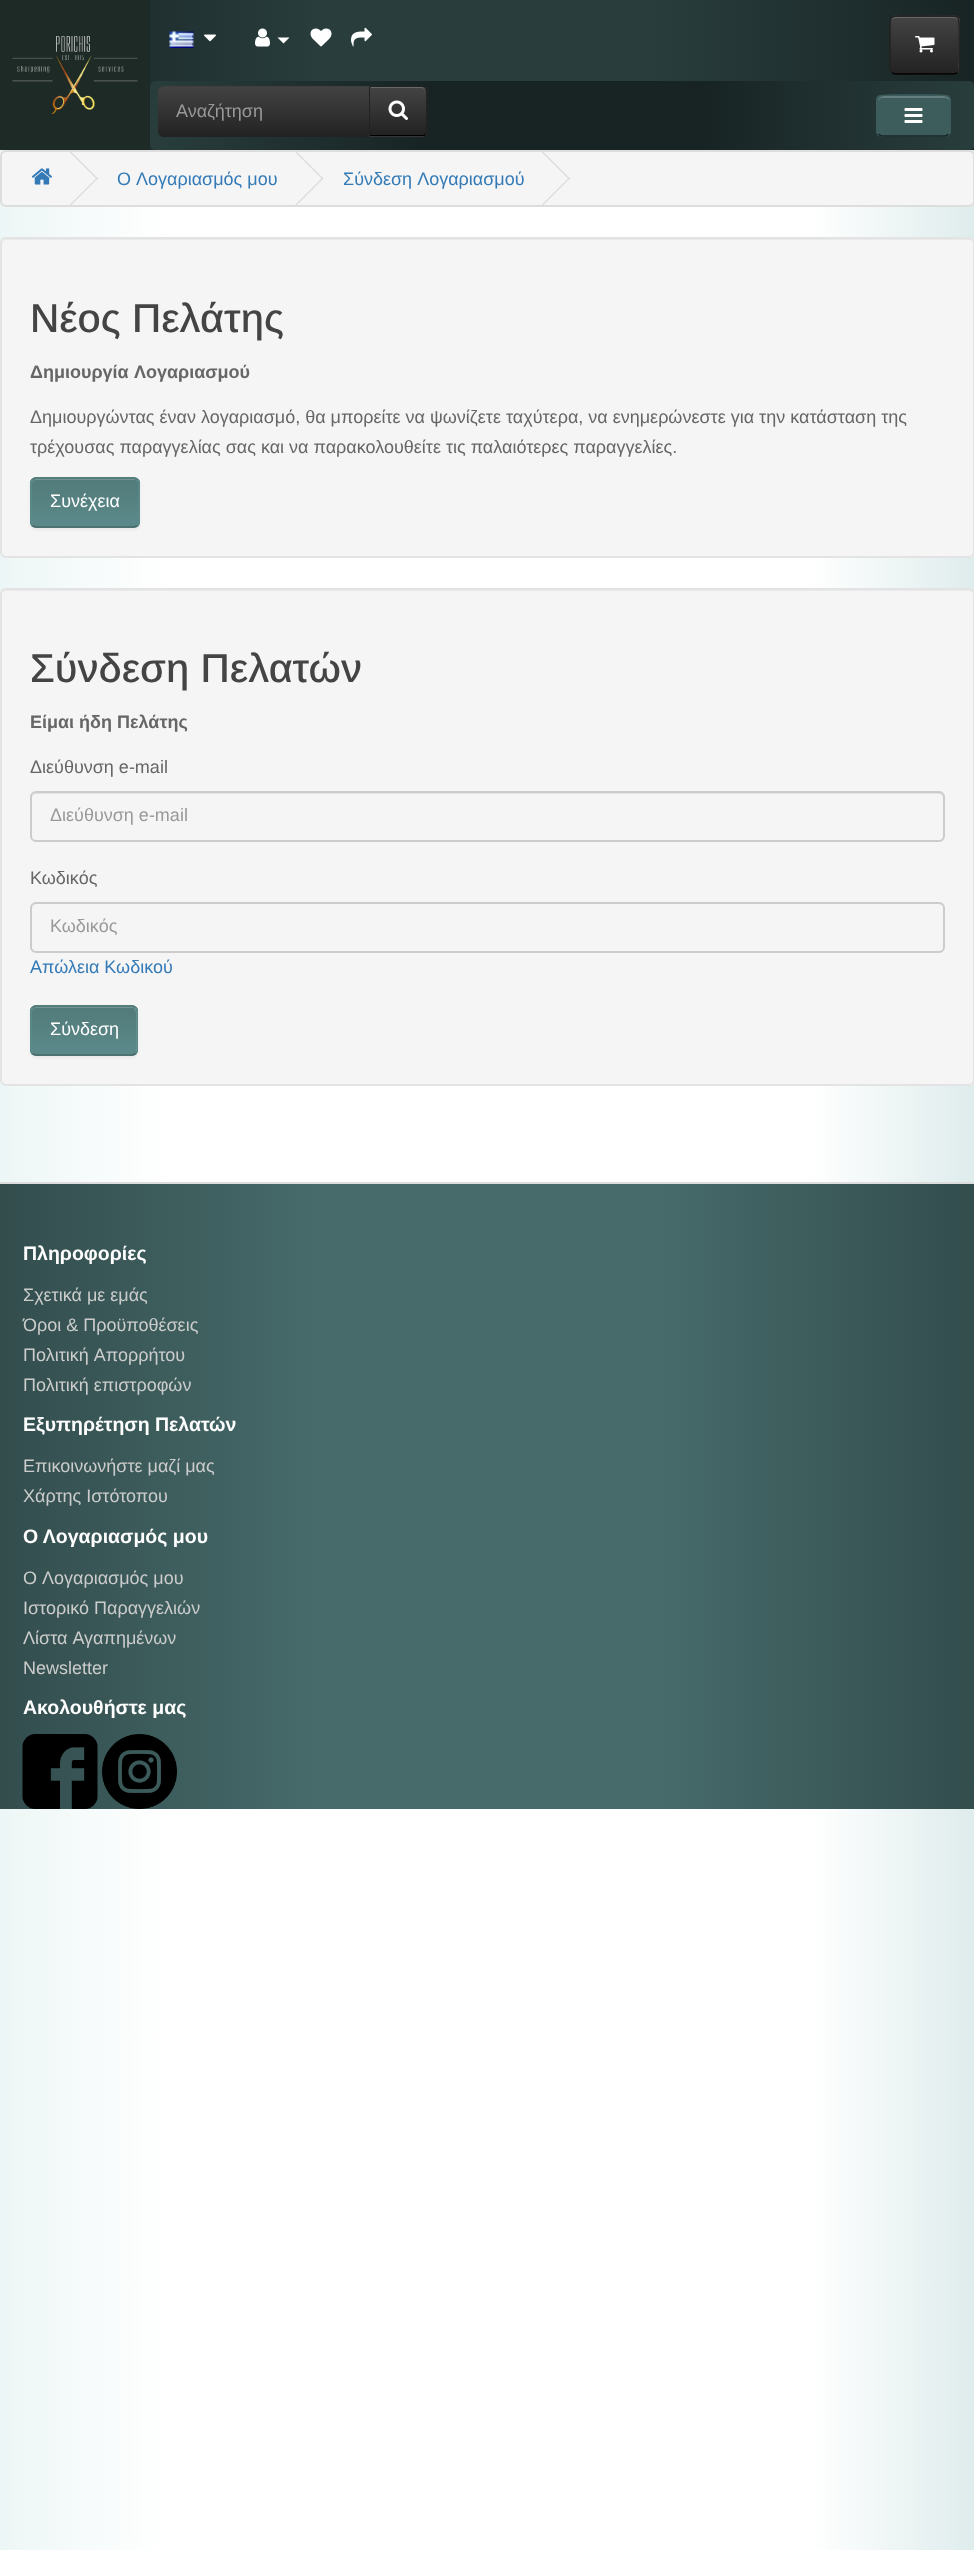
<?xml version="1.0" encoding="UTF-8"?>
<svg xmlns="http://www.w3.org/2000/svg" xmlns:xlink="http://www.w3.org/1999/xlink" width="974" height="2550">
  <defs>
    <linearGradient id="g1" gradientUnits="userSpaceOnUse" x1="0" y1="905" x2="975" y2="905"><stop offset="0" stop-color="#edf6f6" /><stop offset="0.17" stop-color="#ffffff" /><stop offset="0.83" stop-color="#ffffff" /><stop offset="1" stop-color="#dfecec" /></linearGradient>
    <linearGradient id="g2" gradientUnits="userSpaceOnUse" x1="0" y1="75" x2="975" y2="75"><stop offset="0" stop-color="#182424" /><stop offset="0.33" stop-color="#293d3d" /><stop offset="0.67" stop-color="#293d3d" /><stop offset="1" stop-color="#182424" /></linearGradient>
    <clipPath id="clip1"><rect x="890" y="15" width="70" height="60" rx="6" /></clipPath>
    <linearGradient id="g3" gradientUnits="userSpaceOnUse" x1="925" y1="16" x2="925" y2="74"><stop offset="0" stop-color="#444444" /><stop offset="1" stop-color="#222222" /></linearGradient>
    <clipPath id="clip2"><rect x="150" y="81" width="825" height="69" rx="6" /></clipPath>
    <linearGradient id="g4" gradientUnits="userSpaceOnUse" x1="-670" y1="116" x2="152" y2="115"><stop offset="0" stop-color="#293d3d" /><stop offset="0.33" stop-color="#182424" /><stop offset="0.67" stop-color="#182424" /><stop offset="1" stop-color="#293d3d" /></linearGradient>
    <linearGradient id="g5" gradientUnits="userSpaceOnUse" x1="152" y1="116" x2="974" y2="115"><stop offset="0" stop-color="#293d3d" /><stop offset="0.33" stop-color="#182424" /><stop offset="0.67" stop-color="#182424" /><stop offset="1" stop-color="#293d3d" /></linearGradient>
    <clipPath id="clip3"><rect x="876" y="95" width="75" height="42" rx="6" /></clipPath>
    <linearGradient id="g6" gradientUnits="userSpaceOnUse" x1="264" y1="85" x2="264" y2="137"><stop offset="0" stop-color="#444444" /><stop offset="1" stop-color="#222222" /></linearGradient>
    <clipPath id="clip4"><path d="M 369 86 h 53 c 3.5 0 6 2.5 6 6 v 39 c 0 3.5 -2.5 6 -6 6 h -53 z" /></clipPath>
    <linearGradient id="g7" gradientUnits="userSpaceOnUse" x1="398" y1="87" x2="398" y2="135"><stop offset="0" stop-color="#444444" /><stop offset="1" stop-color="#222222" /></linearGradient>
    <clipPath id="clip5"><rect x="30" y="477" width="110" height="51" rx="6" /></clipPath>
    <linearGradient id="g8" gradientUnits="userSpaceOnUse" x1="85" y1="479" x2="85" y2="527"><stop offset="0" stop-color="#527a7a" /><stop offset="1" stop-color="#5c8a8a" /></linearGradient>
    <clipPath id="clip6"><rect x="30" y="1005" width="108" height="51" rx="6" /></clipPath>
    <linearGradient id="g9" gradientUnits="userSpaceOnUse" x1="84" y1="1007" x2="84" y2="1055"><stop offset="0" stop-color="#527a7a" /><stop offset="1" stop-color="#5c8a8a" /></linearGradient>
    <linearGradient id="g10" gradientUnits="userSpaceOnUse" x1="0" y1="1496" x2="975" y2="1496"><stop offset="0" stop-color="#334d4d" /><stop offset="0.33" stop-color="#476b6b" /><stop offset="0.67" stop-color="#476b6b" /><stop offset="1" stop-color="#334d4d" /></linearGradient>
  </defs>
  <rect width="100%" height="100%" fill="#ffffff" />
  <rect y="150" width="974" height="2400" fill="url(#g1)" />
  <rect width="974" height="150" fill="url(#g2)" />
  <image x="0" y="0" width="150" height="150" xlink:href="image1.png" />
  <rect x="890" y="15" width="70" height="60" rx="6" fill="#363636" />
  <g clip-path="url(#clip1)">
    <rect x="890" y="17" width="70" height="57" fill="url(#g3)" />
  </g>
  <path d="M 896 18 h 58 c 2 0 4 2 4 4 v 48 l -1 3 c 1 -1 2 -3 2 -4 v -47 c 0 -3 -2 -5 -5 -5 h -58 c -3 0 -5 2 -5 5 c 0 -2 2 -4 5 -4 z" fill="#ffffff" fill-opacity="0.2" />
  <path d="M 957.5 72.5 c -1 1 -2 1.5 -3.5 1.5 h -58.5 c -1.5 0 -2.5 -0.5 -3.5 -1.5" fill="none" stroke="#000000" stroke-width="1.5" />
  <path d="M 892 72.5 c -3 -2.5 -2 -8.5 -2 -11.5 v -32 c 0 -14.5 0.5 -13 15 -13 h 39 c 15 0 15 -1.5 15 13 v 32 c 0 3 1.5 9 -1.5 11.5" fill="none" stroke="#222222" stroke-width="1.5" />
  <image x="915" y="36" width="20" height="17" xlink:href="image2.png" />
  <g clip-path="url(#clip2)">
    <rect x="150" y="81" width="2" height="69" fill="url(#g4)" />
    <rect x="152" y="81" width="822" height="69" fill="url(#g5)" />
  </g>
  <rect x="876" y="95" width="75" height="42" rx="6" fill="#3d5c5c" />
  <g clip-path="url(#clip3)">
    <rect x="876" y="96" width="75" height="39" fill="#3d5c5c" />
  </g>
  <path d="M 882 98 h 63 c 2 0 5 2 5 4 c 0 -8 -10 -6 -15 -6 h -42 c -5 0 -15 -2 -15 6 c 0 -2 2 -4 4 -4 z" fill="#647d7d" />
  <path d="M 948.5 134 c -1 1 -2 2 -3.5 2 h -63 c -1.5 0 -2.5 -1 -3.5 -2" fill="none" stroke="#182424" stroke-width="1.5" />
  <path d="M 878.5 134 c -2.5 -2 -1.5 -5.5 -1.5 -8.5 v -10 c 0 -20.5 -4 -20.5 15.5 -20.5 h 42 c 19.5 0 15.5 0 15.5 20.5 v 10 c 0 3 1 6.5 -1.5 8.5" fill="none" stroke="#3d5c5c" stroke-width="1.5" />
  <image x="904" y="108" width="19" height="15" xlink:href="image3.png" />
  <image x="169" y="31" width="25" height="17" xlink:href="image4.png" />
  <image x="204" y="34" width="12" height="8" xlink:href="image5.png" />
  <image x="255" y="28" width="15" height="19" xlink:href="image6.png" />
  <path d="M 277.5 37.5 h 12 l -6 6 z" fill="#ffffff" />
  <image x="310" y="28" width="22" height="19" xlink:href="image7.png" />
  <image x="351" y="27" width="21" height="20" xlink:href="image8.png" />
  <path d="M 164 86 h 207 v 51 h -207 c -3.5 0 -6 -2.5 -6 -6 v -39 c 0 -3.5 2.5 -6 6 -6 z" fill="url(#g6)" />
  <path d="M 164 87 h 206 v 50 h 1 v -51 h -207 c -4 0 -6 3 -6 7 c 0 -3 2 -6 6 -6 z" fill="#000000" fill-opacity="0.07" />
  <path d="M 369 86 h 53 c 3.5 0 6 2.5 6 6 v 39 c 0 3.5 -2.5 6 -6 6 h -53 z" fill="#363636" />
  <g clip-path="url(#clip4)">
    <rect x="370" y="87" width="58" height="48" fill="url(#g7)" />
  </g>
  <path d="M 371 87 v 1 h 51 c 2 0 4 3 4 5 c 0 -3 -2 -6 -5 -6 z" fill="#696969" />
  <path d="M 426 87 c -1 -1 -3 -1 -4 -1 h -52 v 1 h 53 l 2 1 z" fill="#222222" />
  <path d="M 426 87 l 2 2 v 44 l -2 2 l -1 -1 c 0 -1 1 -2 1 -4 v -38 c 0 -2 -1 -3 -1 -4 z" fill="#222222" />
  <path d="M 426 135 c -1 1 -3 1 -4 1 h -52 v -1 h 53 l 2 -1 z" fill="#000000" />
  <path d="M 370 87 v 48 l -1 1 v -50 z" fill="#222222" />
  <image x="388" y="100" width="20" height="20" xlink:href="image9.png" />
  <rect x="1" y="151" width="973" height="55" rx="5" fill="#f5f5f5" stroke="#dddddd" stroke-width="2" />
  <image x="31" y="168" width="21" height="17" xlink:href="image10.png" />
  <path d="M 69.5 152 l 1 -1 l 27.5 27.5 l -1 1 z" fill="#dddddd" />
  <path d="M 69.5 205 l 27.5 -27.5 l 1 1 l -27.5 27.5 z" fill="#dddddd" />
  <path d="M 295 152 l 1 -1 l 27.5 27.5 l -1 1 z" fill="#dddddd" />
  <path d="M 295 205 l 27.5 -27.5 l 1 1 l -27.5 27.5 z" fill="#dddddd" />
  <path d="M 541.5 152 l 1 -1 l 27.5 27.5 l -1 1 z" fill="#dddddd" />
  <path d="M 541.5 205 l 27.5 -27.5 l 1 1 l -27.5 27.5 z" fill="#dddddd" />
  <rect y="237" width="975" height="321" rx="6" fill="#f5f5f5" />
  <path d="M 6 240 h 963 c 2 0 5 2 5 4 c 0 -3 -2 -5 -5 -5 h -962 c -3 0 -5 2 -5 5 c 0 -2 2 -4 4 -4 z" fill="#e9e9e9" />
  <rect x="1" y="238" width="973" height="319" rx="5" fill="none" stroke="#e3e3e3" stroke-width="2" />
  <rect x="30" y="479" width="110" height="51" rx="6" fill="#000000" fill-opacity="0.05" filter="blur(1.5px)" />
  <rect x="30" y="477" width="110" height="51" rx="6" fill="#5c8a8a" />
  <g clip-path="url(#clip5)">
    <rect x="30" y="479" width="110" height="48" fill="url(#g8)" />
  </g>
  <path d="M 36 480 h 98 c 2 0 4 2 4 4 c 0 -3 -2 -5 -5 -5 h -96 c -3 0 -5 2 -5 5 c 0 -2 2 -4 4 -4 z" fill="#759595" />
  <path d="M 32.5 479.5 l 3 -1.5 h 98.5 l 3 1.5" fill="none" stroke="#527a7a" stroke-width="1.5" />
  <path d="M 137 479.5 c 1 1 2 2 2 3.5 v 39 c 0 1.5 -1 2.5 -2 3.5" fill="none" stroke="#5c8a8a" stroke-width="1.5" />
  <path d="M 137 525.5 l -3 1.5 h -98.5 l -3 -1.5" fill="none" stroke="#476b6b" stroke-width="1.5" />
  <path d="M 32.5 525.5 c -1 -1 -1.5 -2 -1.5 -3.5 v -39 c 0 -1.5 0.5 -2.5 1.5 -3.5" fill="none" stroke="#5c8a8a" stroke-width="1.5" />
  <rect y="588" width="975" height="498" rx="6" fill="#f5f5f5" />
  <path d="M 6 591 h 963 c 2 0 5 2 5 5 c 0 -3 -2 -6 -5 -6 h -962 c -3 0 -5 3 -5 6 c 0 -3 2 -5 4 -5 z" fill="#e9e9e9" />
  <rect x="1" y="589" width="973" height="496" rx="5" fill="none" stroke="#e3e3e3" stroke-width="2" />
  <path d="M 36 794 h 903 c 2 0 5 2 5 4 c 0 -3 -2 -6 -5 -6 h -902 c -3 0 -5 3 -5 6 c 0 -2 2 -4 4 -4 z" fill="#e3e3e3" />
  <rect x="31" y="792" width="913" height="49" rx="5" fill="none" stroke="#cccccc" stroke-width="2" />
  <path d="M 36 904 h 903 c 2 0 5 3 5 5 c 0 -3 -2 -6 -5 -6 h -902 c -3 0 -5 3 -5 6 c 0 -2 2 -5 4 -5 z" fill="#e3e3e3" />
  <rect x="31" y="903" width="913" height="49" rx="5" fill="none" stroke="#cccccc" stroke-width="2" />
  <rect x="30" y="1007" width="108" height="51" rx="6" fill="#000000" fill-opacity="0.05" filter="blur(1.5px)" />
  <rect x="30" y="1005" width="108" height="51" rx="6" fill="#5c8a8a" />
  <g clip-path="url(#clip6)">
    <rect x="30" y="1007" width="108" height="48" fill="url(#g9)" />
  </g>
  <path d="M 36 1008 h 96 c 5 0 4 8 4 11 v 34 c 1 -1 1 -2 1 -3 v -38 c 0 -3 -2 -5 -5 -5 h -95 c -3 0 -5 2 -5 5 c 0 -2 2 -4 4 -4 z" fill="#ffffff" fill-opacity="0.2" />
  <path d="M 32.5 1007.5 l 3 -1.5 h 97 l 3 1.5" fill="none" stroke="#527a7a" stroke-width="1.5" />
  <path d="M 135.5 1007.5 c 1 1 1.5 2 1.5 3.5 v 39 c 0 1.5 -0.5 2.5 -1.5 3.5" fill="none" stroke="#5c8a8a" stroke-width="1.5" />
  <path d="M 135.5 1053.5 l -3 1.5 h -97 l -3 -1.5" fill="none" stroke="#476b6b" stroke-width="1.5" />
  <path d="M 32.5 1053.5 c -1 -1 -1.5 -2 -1.5 -3.5 v -39 c 0 -1.5 0.5 -2.5 1.5 -3.5" fill="none" stroke="#5c8a8a" stroke-width="1.5" />
  <rect y="1184" width="974" height="625" fill="url(#g10)" />
  <rect y="1182" width="974" height="2" fill="#dddddd" />
  <image x="22" y="1734" width="76" height="75" xlink:href="image11.png" />
  <image x="102" y="1734" width="75" height="75" xlink:href="image12.png" />
  <text x="176" y="117" style="font-family: Arimo; font-size: 18px; fill: #999999">Αναζήτηση</text>
  <text x="117" y="185" style="font-family: Arimo; font-size: 18px; fill: #337ab7">O Λογαριασμός μου</text>
  <text x="343" y="185" style="font-family: Arimo; font-size: 18px; fill: #337ab7">Σύνδεση Λογαριασμού</text>
  <text x="30" y="332" style="font-family: Arimo; font-size: 40.5px; font-weight: 500; fill: #444444">Νέος Πελάτης</text>
  <text x="30" y="378" word-spacing="1" style="font-family: Arimo; font-size: 18px; font-weight: bold; fill: #666666">Δημιουργία Λογαριασμού</text>
  <text x="30" y="423" style="font-family: Arimo; font-size: 18px; fill: #666666">Δημιουργώντας έναν λογαριασμό, θα μπορείτε να ψωνίζετε ταχύτερα, να ενημερώνεστε για την κατάσταση της</text>
  <text x="30" y="453" style="font-family: Arimo; font-size: 18px; fill: #666666">τρέχουσας παραγγελίας σας και να παρακολουθείτε τις παλαιότερες παραγγελίες.</text>
  <text x="50" y="507" style="font-family: Arimo; font-size: 18px; fill: #ffffff">Συνέχεια</text>
  <text x="30" y="682" style="font-family: Arimo; font-size: 40.5px; font-weight: 500; fill: #444444">Σύνδεση Πελατών</text>
  <text x="30" y="728" style="font-family: Arimo; font-size: 18px; font-weight: bold; fill: #666666">Είμαι ήδη Πελάτης</text>
  <text x="30" y="773" style="font-family: Arimo; font-size: 18px; fill: #666666">Διεύθυνση e-mail</text>
  <text x="50" y="821" style="font-family: Arimo; font-size: 18px; fill: #999999">Διεύθυνση e-mail</text>
  <text x="30" y="884" style="font-family: Arimo; font-size: 18px; fill: #666666">Κωδικός</text>
  <text x="50" y="932" style="font-family: Arimo; font-size: 18px; fill: #999999">Κωδικός</text>
  <text x="30" y="973" style="font-family: Arimo; font-size: 18px; fill: #337ab7">Απώλεια Κωδικού</text>
  <text x="50" y="1035" style="font-family: Arimo; font-size: 18px; fill: #ffffff">Σύνδεση</text>
  <text x="23" y="1260" style="font-family: Arimo; font-size: 19.5px; font-weight: bold; fill: #ffffff">Πληροφορίες</text>
  <text x="23" y="1301" style="font-family: Arimo; font-size: 18px; fill: #cccccc">Σχετικά με εμάς</text>
  <text x="23" y="1331" style="font-family: Arimo; font-size: 18px; fill: #cccccc">Όροι &amp; Προϋποθέσεις</text>
  <text x="23" y="1361" style="font-family: Arimo; font-size: 18px; fill: #cccccc">Πολιτική Απορρήτου</text>
  <text x="23" y="1391" style="font-family: Arimo; font-size: 18px; fill: #cccccc">Πολιτική επιστροφών</text>
  <text x="23" y="1431" style="font-family: Arimo; font-size: 19.5px; font-weight: bold; fill: #ffffff">Εξυπηρέτηση Πελατών</text>
  <text x="23" y="1472" style="font-family: Arimo; font-size: 18px; fill: #cccccc">Επικοινωνήστε μαζί μας</text>
  <text x="23" y="1502" style="font-family: Arimo; font-size: 18px; fill: #cccccc">Χάρτης Ιστότοπου</text>
  <text x="23" y="1543" style="font-family: Arimo; font-size: 19.5px; font-weight: bold; fill: #ffffff">Ο Λογαριασμός μου</text>
  <text x="23" y="1584" style="font-family: Arimo; font-size: 18px; fill: #cccccc">Ο Λογαριασμός μου</text>
  <text x="23" y="1614" style="font-family: Arimo; font-size: 18px; fill: #cccccc">Ιστορικό Παραγγελιών</text>
  <text x="23" y="1644" style="font-family: Arimo; font-size: 18px; fill: #cccccc">Λίστα Αγαπημένων</text>
  <text x="23" y="1674" style="font-family: Arimo; font-size: 18px; fill: #cccccc">Newsletter</text>
  <text x="23" y="1714" style="font-family: Arimo; font-size: 19.5px; font-weight: bold; fill: #ffffff">Ακολουθήστε μας</text>
</svg>
